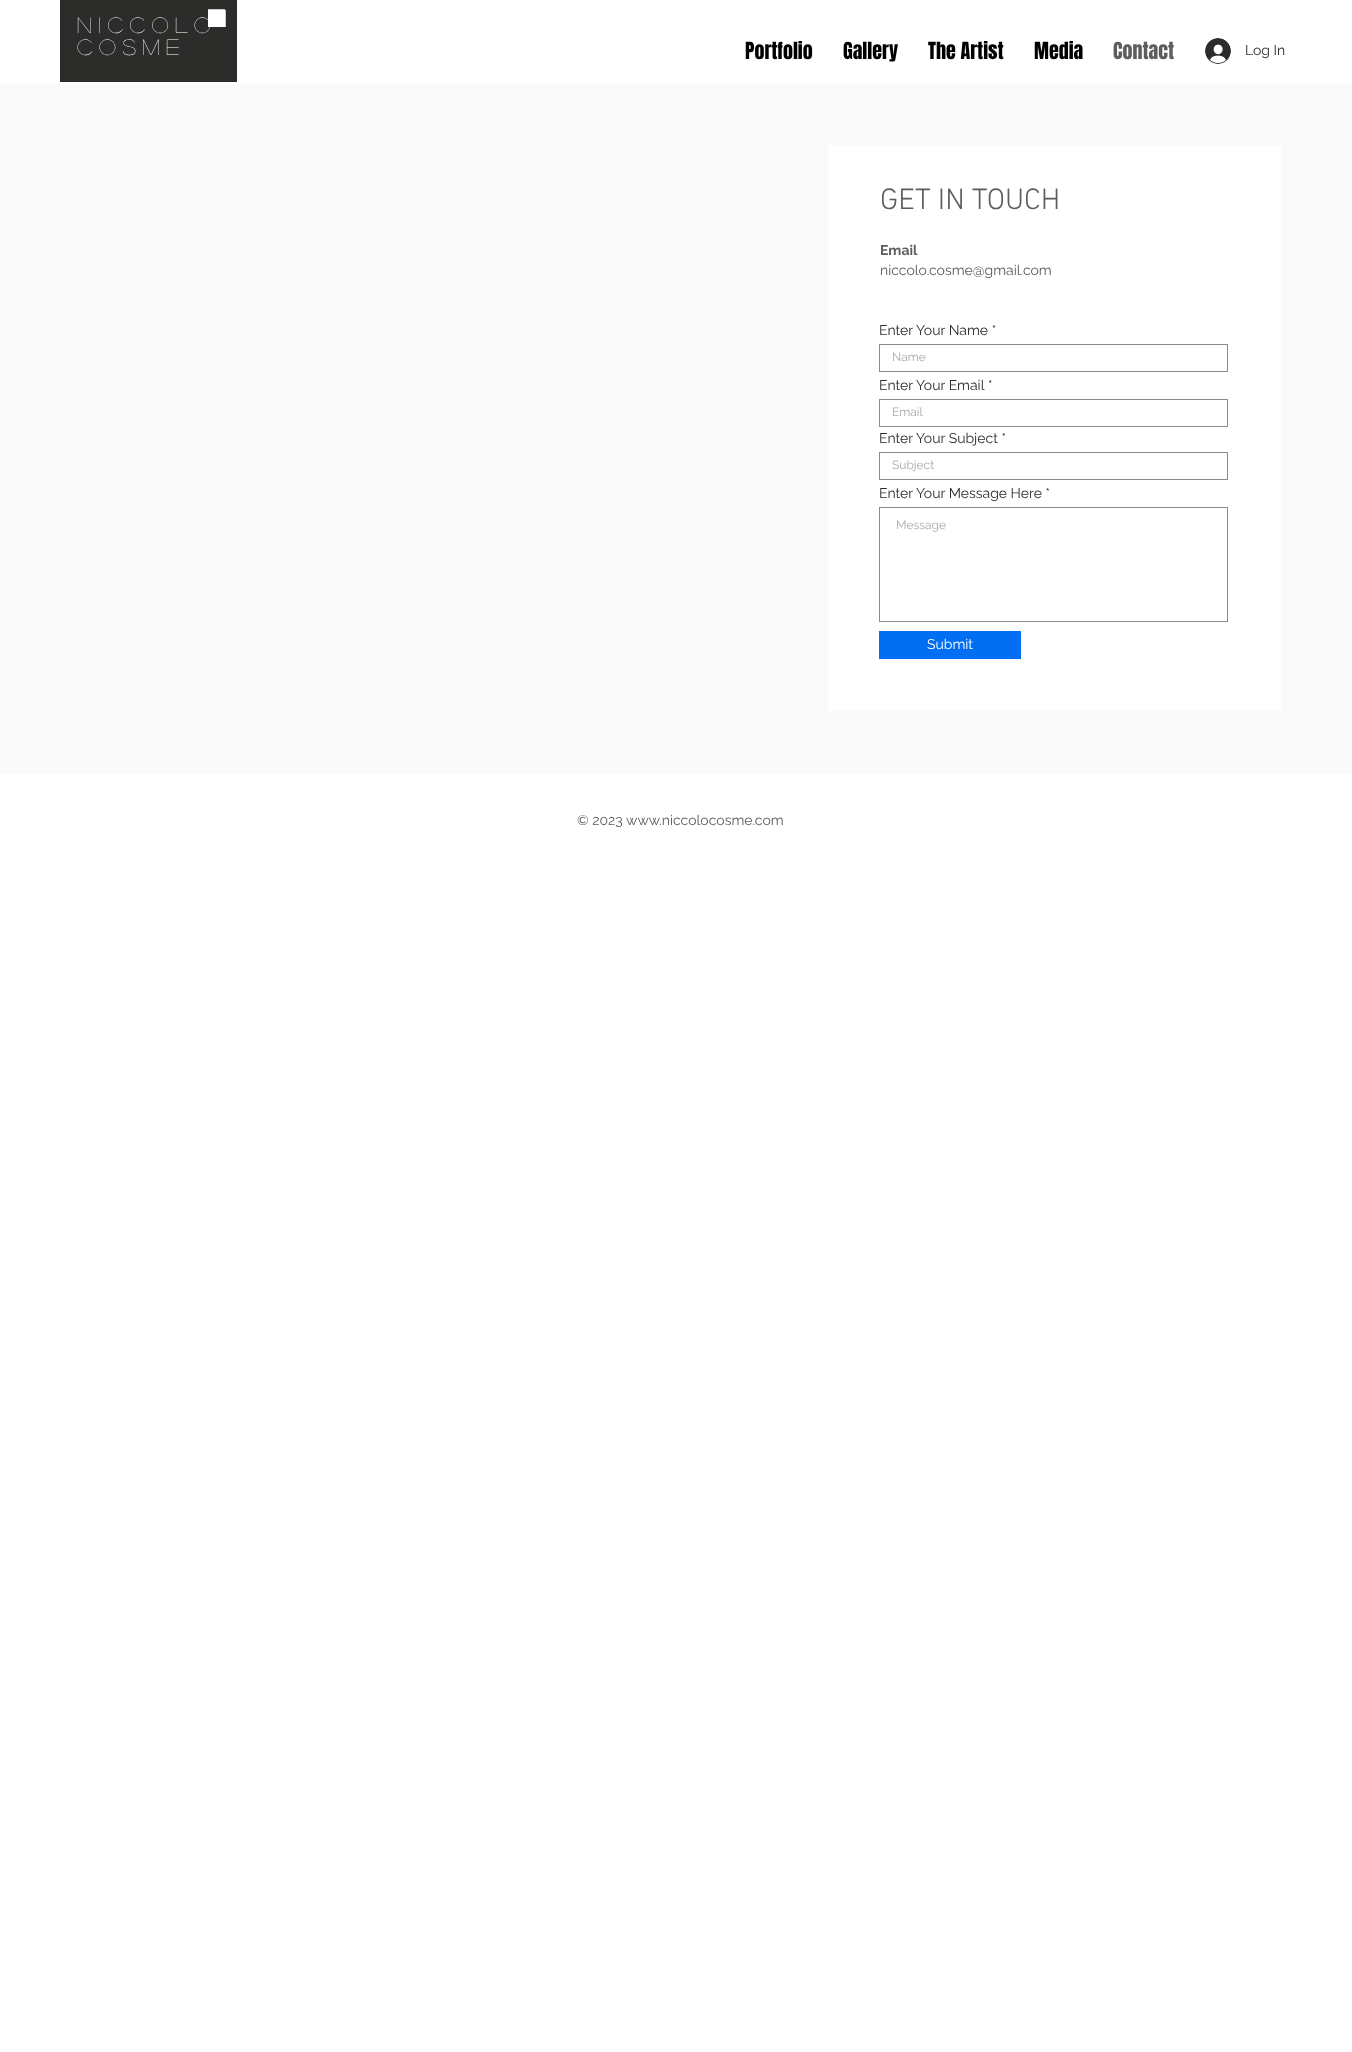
<?xml version="1.0" encoding="UTF-8"?>
<svg xmlns="http://www.w3.org/2000/svg" xmlns:xlink="http://www.w3.org/1999/xlink" width="1352" height="2052">
  <rect width="100%" height="100%" fill="#ffffff" />
  <rect x="60" width="177" height="82" fill="#2c2c2b" />
  <rect x="208" y="10" width="17" height="17" fill="#ffffff" />
  <path d="M 208 10 h 17 v 17 v -17 z" fill="none" stroke="#ffffff" />
  <image x="1205" y="38" width="26" height="26" xlink:href="image1.png" />
  <rect y="84" width="1352" height="690" fill="#fafafa" />
  <rect x="828" y="145" width="453" height="566" fill="#ffffff" />
  <rect x="879.5" y="344.5" width="348" height="27" fill="none" stroke="#8b8b8a" />
  <rect x="879.5" y="399.5" width="348" height="27" fill="none" stroke="#8b8b8a" />
  <rect x="879.5" y="452.5" width="348" height="27" fill="none" stroke="#8b8b8a" />
  <rect x="879.5" y="507.5" width="348" height="114" fill="none" stroke="#8b8b8a" />
  <rect x="879" y="631" width="142" height="28" fill="#026ef2" />
  <text x="77" y="33" style="font-family: 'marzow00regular'; font-size: 22px; letter-spacing: 6.5px; fill: #ffffff">Niccolo</text>
  <text x="77" y="55" style="font-family: 'marzow00regular'; font-size: 22px; letter-spacing: 6.5px; fill: #ffffff">cosme</text>
  <text x="745" y="59" style="font-family: Anton; font-size: 20px; fill: #000000">Portfolio</text>
  <text x="843" y="59" style="font-family: Anton; font-size: 20px; fill: #000000">Gallery</text>
  <text x="928" y="59" style="font-family: Anton; font-size: 20px; fill: #000000">The Artist</text>
  <text x="1034" y="59" style="font-family: Anton; font-size: 20px; fill: #000000">Media</text>
  <text x="1113" y="59" style="font-family: Anton; font-size: 20px; fill: #5e5d5d">Contact</text>
  <text x="1245" y="55" style="font-family: Raleway; font-size: 14px; fill: #2c2c2b">Log In</text>
  <text x="880" y="209" style="font-family: 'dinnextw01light'; font-size: 30px; font-weight: 300; fill: #5e5d5d">GET IN TOUCH</text>
  <text x="880" y="255" style="font-family: Raleway; font-size: 14px; font-weight: bold; fill: #5e5d5d">Email</text>
  <text x="880" y="275" style="font-family: Raleway; font-size: 14px; fill: #5e5d5d">niccolo.cosme@gmail.com</text>
  <text x="879" y="335" style="font-family: Raleway; font-size: 14px; fill: #2c2c2b">Enter Your Name *</text>
  <text x="892" y="361" style="font-family: Raleway; font-size: 12px; fill: #aca9a9">Name</text>
  <text x="879" y="390" style="font-family: Raleway; font-size: 14px; fill: #2c2c2b">Enter Your Email</text>
  <text x="988" y="390" style="font-family: Raleway; font-size: 14px; fill: #2c2c2b">*</text>
  <text x="892" y="416" style="font-family: Raleway; font-size: 12px; fill: #aca9a9">Email</text>
  <text x="879" y="443" style="font-family: Raleway; font-size: 14px; fill: #2c2c2b">Enter Your Subject *</text>
  <text x="892" y="469" style="font-family: Raleway; font-size: 12px; fill: #aca9a9">Subject</text>
  <text x="879" y="498" style="font-family: Raleway; font-size: 14px; fill: #2c2c2b">Enter Your Message Here *</text>
  <text x="896" y="529" style="font-family: Raleway; font-size: 12px; fill: #aca9a9">Message</text>
  <text x="927" y="649" style="font-family: Raleway; font-size: 14px; fill: #ffffff">Submit</text>
  <text x="577" y="825" style="font-family: Raleway; font-size: 14px; fill: #5e5d5d">© 2023</text>
  <text x="626" y="825" style="font-family: Raleway; font-size: 14px; fill: #5e5d5d">www.niccolocosme.com</text>
</svg>
